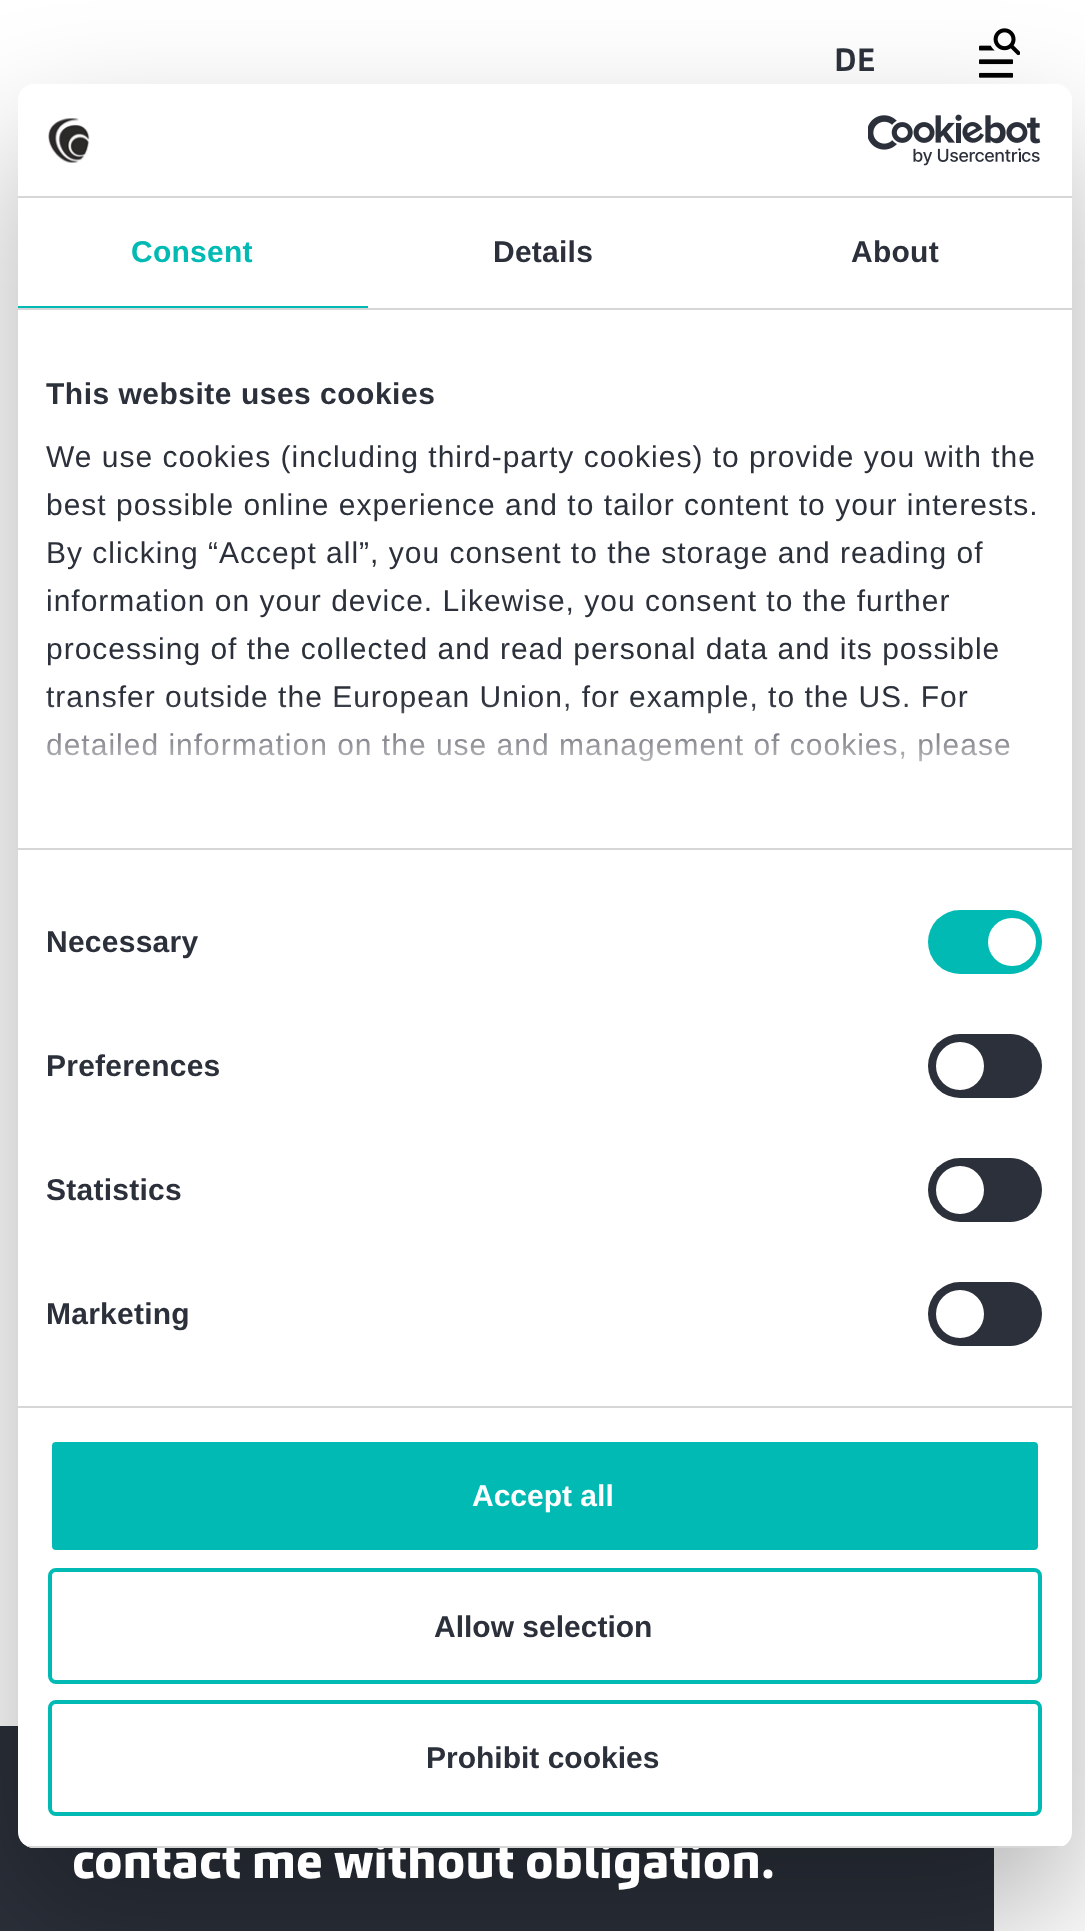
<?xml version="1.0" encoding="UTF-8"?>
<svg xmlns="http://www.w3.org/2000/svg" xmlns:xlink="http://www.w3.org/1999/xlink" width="1085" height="1931">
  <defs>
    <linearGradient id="g1" gradientUnits="userSpaceOnUse" x1="531" y1="849" x2="531" y2="699"><stop offset="0" stop-color="#ffffff" /><stop offset="0.5" stop-color="#ffffff" stop-opacity="0.8" /><stop offset="1" stop-color="#ffffff" stop-opacity="0" /></linearGradient>
    <clipPath id="clip1"><rect x="18" y="84" width="1054" height="1764" rx="16" /></clipPath>
  </defs>
  <rect width="100%" height="100%" fill="#ffffff" />
  <image x="979" y="28" width="41" height="50" xlink:href="image1.png" />
  <rect y="1726" width="994" height="205" fill="#2b303a" />
  <rect x="18" y="148" width="1054" height="1764" rx="16" fill="#000000" fill-opacity="0.3" filter="blur(68px)" />
  <rect x="18" y="84" width="1054" height="1764" rx="16" fill="#ffffff" />
  <rect x="18" y="196" width="1054" height="2" fill="#d6d6d6" />
  <image x="48" y="118" width="42" height="45" xlink:href="image2.png" />
  <image x="868" y="114" width="173" height="52" xlink:href="image3.png" />
  <rect x="18" y="308" width="1054" height="2" fill="#d6d6d6" />
  <rect x="18" y="306" width="350" height="2" fill="#00bab3" />
  <rect x="18" y="848" width="1054" height="2" fill="#d6d6d6" />
  <rect x="18" y="1406" width="1054" height="2" fill="#d6d6d6" />
  <rect x="928" y="910" width="114" height="64" rx="32" fill="#00bab3" />
  <circle cx="1012" cy="942" r="24" fill="#ffffff" />
  <rect x="928" y="1034" width="114" height="64" rx="32" fill="#2b303a" />
  <circle cx="960" cy="1066" r="24" fill="#ffffff" />
  <rect x="928" y="1158" width="114" height="64" rx="32" fill="#2b303a" />
  <circle cx="960" cy="1190" r="24" fill="#ffffff" />
  <rect x="928" y="1282" width="114" height="64" rx="32" fill="#2b303a" />
  <circle cx="960" cy="1314" r="24" fill="#ffffff" />
  <rect x="50" y="1440" width="990" height="112" rx="6" fill="#00bab3" stroke="#ffffff" stroke-width="4" />
  <rect x="50" y="1570" width="990" height="112" rx="6" fill="none" stroke="#00bab3" stroke-width="4" />
  <rect x="50" y="1702" width="990" height="112" rx="6" fill="none" stroke="#00bab3" stroke-width="4" />
  <text x="834" y="71" style="font-family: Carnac; font-size: 32px; font-weight: bold; fill: #2b303a">DE</text>
  <text x="72" y="1878" style="font-family: Carnac; font-size: 50px; font-weight: 800; fill: #ffffff">contact me without obligation.</text>
  <text x="131" y="262" style="font-family: Liberation Sans; font-size: 30px; font-weight: bold; letter-spacing: 0.25px; fill: #00bab3">Consent</text>
  <text x="493" y="262" style="font-family: Liberation Sans; font-size: 30px; font-weight: bold; letter-spacing: 0.25px; fill: #2b303a">Details</text>
  <text x="851" y="262" style="font-family: Liberation Sans; font-size: 30px; font-weight: bold; letter-spacing: 0.25px; fill: #2b303a">About</text>
  <text x="46" y="404" style="font-family: Liberation Sans; font-size: 30px; font-weight: bold; letter-spacing: 0.5px; fill: #2b303a">This website uses cookies</text>
  <text x="46" y="467" style="font-family: Liberation Sans; font-size: 30px; letter-spacing: 1px; fill: #2b303a">We use cookies (including third-party cookies) to provide you with the</text>
  <text x="46" y="515" style="font-family: Liberation Sans; font-size: 30px; letter-spacing: 1px; fill: #2b303a">best possible online experience and to tailor content to your interests.</text>
  <text x="46" y="563" style="font-family: Liberation Sans; font-size: 30px; letter-spacing: 1px; fill: #2b303a">By clicking “Accept all”, you consent to the storage and reading of</text>
  <text x="46" y="611" style="font-family: Liberation Sans; font-size: 30px; letter-spacing: 1px; fill: #2b303a">information on your device. Likewise, you consent to the further</text>
  <text x="46" y="659" style="font-family: Liberation Sans; font-size: 30px; letter-spacing: 1px; fill: #2b303a">processing of the collected and read personal data and its possible</text>
  <text x="46" y="707" style="font-family: Liberation Sans; font-size: 30px; letter-spacing: 1px; fill: #2b303a">transfer outside the European Union, for example, to the US. For</text>
  <text x="46" y="755" style="font-family: Liberation Sans; font-size: 30px; letter-spacing: 1px; fill: #2b303a">detailed information on the use and management of cookies, please</text>
  <rect x="47" y="701" width="963" height="61" fill="url(#g1)" />
  <text x="46" y="952" style="font-family: Liberation Sans; font-size: 30px; font-weight: bold; letter-spacing: 0.25px; fill: #2b303a">Necessary</text>
  <text x="46" y="1076" style="font-family: Liberation Sans; font-size: 30px; font-weight: bold; letter-spacing: 0.25px; fill: #2b303a">Preferences</text>
  <text x="46" y="1200" style="font-family: Liberation Sans; font-size: 30px; font-weight: bold; letter-spacing: 0.25px; fill: #2b303a">Statistics</text>
  <text x="46" y="1324" style="font-family: Liberation Sans; font-size: 30px; font-weight: bold; letter-spacing: 0.25px; fill: #2b303a">Marketing</text>
  <g clip-path="url(#clip1)">
    <rect x="18" y="1846" width="1054" height="2" fill="#d6d6d6" />
  </g>
  <text x="472" y="1506" style="font-family: Liberation Sans; font-size: 30px; font-weight: bold; fill: #ffffff">Accept all</text>
  <text x="434" y="1637" style="font-family: Liberation Sans; font-size: 30px; font-weight: bold; fill: #2b303a">Allow selection</text>
  <text x="426" y="1768" style="font-family: Liberation Sans; font-size: 30px; font-weight: bold; fill: #2b303a">Prohibit cookies</text>
</svg>
